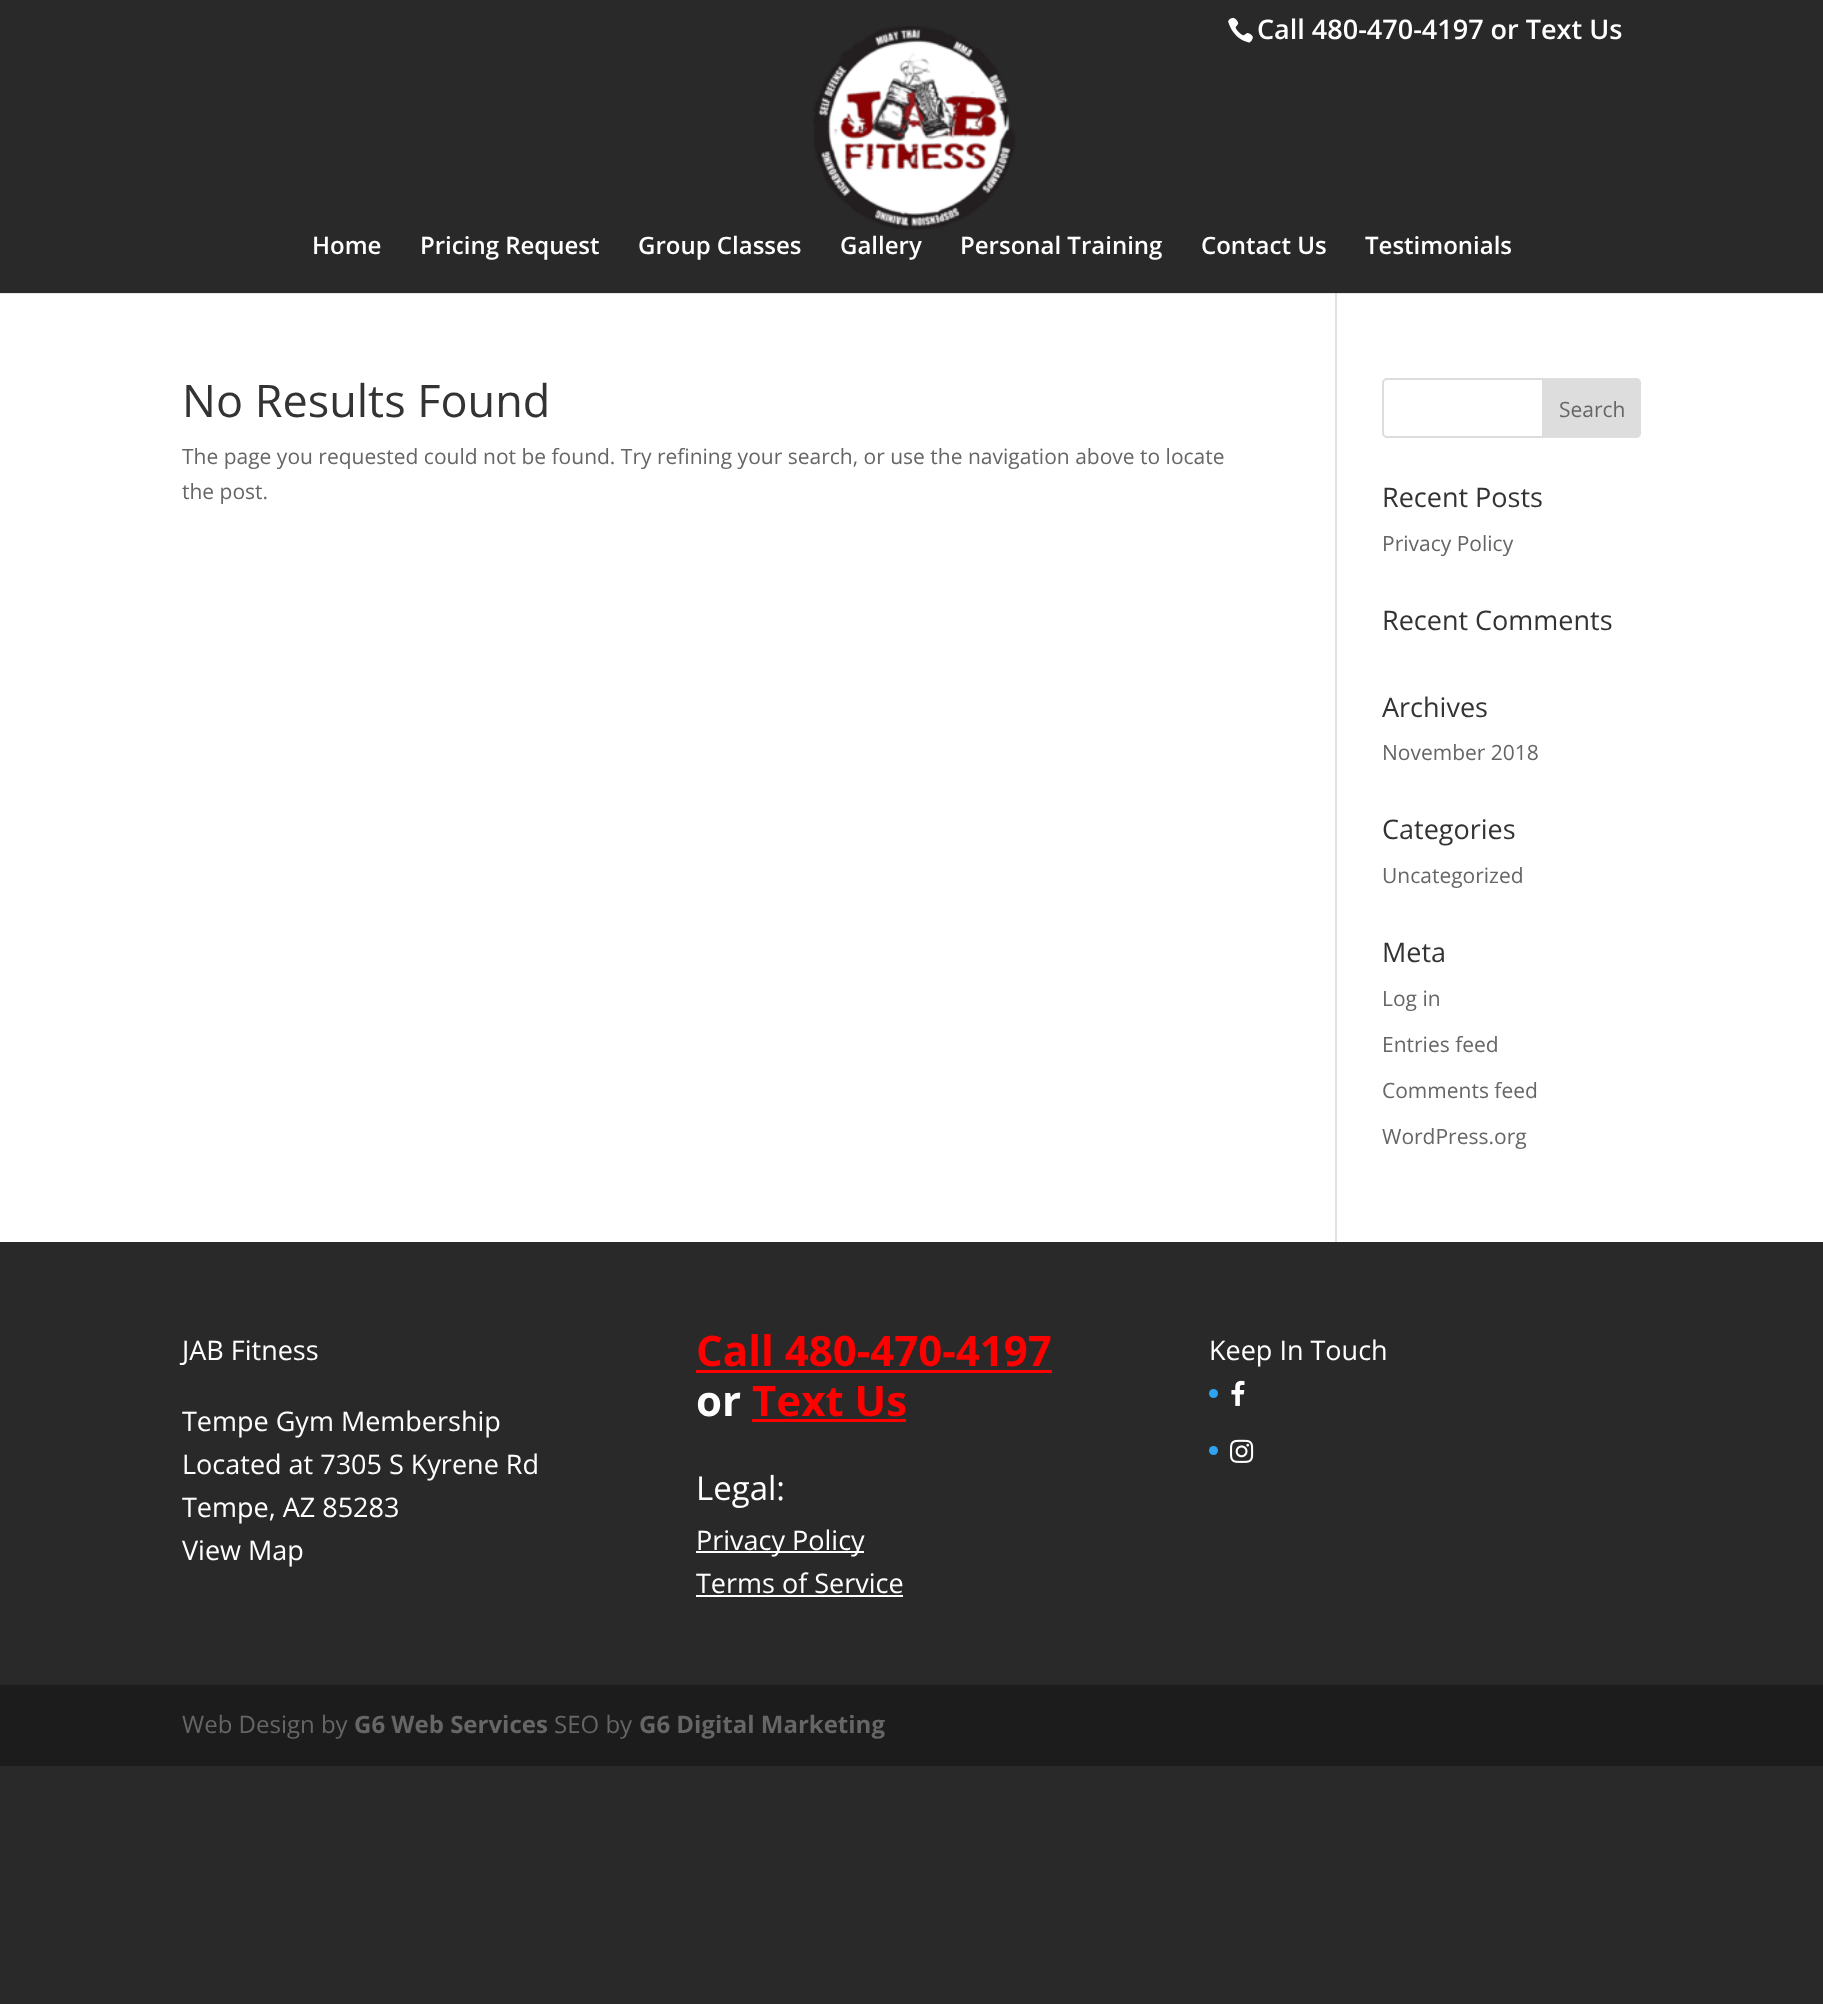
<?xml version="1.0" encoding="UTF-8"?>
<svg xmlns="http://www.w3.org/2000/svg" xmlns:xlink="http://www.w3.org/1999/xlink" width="1823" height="2004">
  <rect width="100%" height="100%" fill="#292929" />
  <image x="1228" y="17" width="25" height="26" xlink:href="image1.png" />
  <rect y="294" width="1823" height="948" fill="#ffffff" />
  <rect y="293" width="1823" height="1" fill="#e6e6e6" />
  <rect x="1335" y="291" width="2" height="951" fill="#e2e2e2" />
  <rect x="1335" y="291" width="2" height="2" fill="#292929" />
  <image x="813" y="26" width="203" height="204" xlink:href="image2.png" />
  <rect x="1335" y="293" width="2" height="1" fill="#cbcbcb" />
  <rect x="1383" y="379" width="257" height="58" rx="4" fill="none" stroke="#dddddd" stroke-width="2" />
  <path d="M 1543 379 h 93 c 2 0 4 2 4 4 v 50 c 0 2 -2 4 -4 4 h -93 z" fill="#dddddd" stroke="#dddddd" stroke-width="2" />
  <rect x="696" y="1370" width="356" height="3" fill="#ff0000" />
  <rect x="752" y="1419" width="154" height="3" fill="#ff0000" />
  <rect x="696" y="1551" width="168" height="2" fill="#ffffff" />
  <rect x="696" y="1595" width="207" height="2" fill="#ffffff" />
  <circle cx="1213.5" cy="1393.5" r="4.5" fill="#2ea3f2" />
  <image x="1231" y="1380" width="14" height="26" xlink:href="image3.png" />
  <circle cx="1213.5" cy="1450.5" r="4.5" fill="#2ea3f2" />
  <image x="1230" y="1439" width="24" height="24" xlink:href="image4.png" />
  <rect y="1685" width="1823" height="81" fill="#1c1c1c" />
  <text x="1257" y="39" style="font-family: Open Sans; font-size: 27px; font-weight: 600; fill: #ffffff">Call 480-470-4197 or Text Us</text>
  <text x="312" y="254" style="font-family: Open Sans; font-size: 24px; font-weight: 600; fill: #ffffff">Home</text>
  <text x="420" y="254" style="font-family: Open Sans; font-size: 24px; font-weight: 600; fill: #ffffff">Pricing Request</text>
  <text x="638" y="254" style="font-family: Open Sans; font-size: 24px; font-weight: 600; fill: #ffffff">Group Classes</text>
  <text x="840" y="254" style="font-family: Open Sans; font-size: 24px; font-weight: 600; fill: #ffffff">Gallery</text>
  <text x="960" y="254" style="font-family: Open Sans; font-size: 24px; font-weight: 600; fill: #ffffff">Personal Training</text>
  <text x="1201" y="254" style="font-family: Open Sans; font-size: 24px; font-weight: 600; fill: #ffffff">Contact Us</text>
  <text x="1365" y="254" style="font-family: Open Sans; font-size: 24px; font-weight: 600; fill: #ffffff">Testimonials</text>
  <text x="182" y="417" style="font-family: Open Sans; font-size: 45px; fill: #333333">No Results Found</text>
  <text x="182" y="464" style="font-family: Open Sans; font-size: 21px; fill: #666666">The page you requested could not be found. Try refining your search, or use the navigation above to locate</text>
  <text x="182" y="499" style="font-family: Open Sans; font-size: 21px; fill: #666666">the post.</text>
  <text x="1559" y="417" style="font-family: Open Sans; font-size: 21px; fill: #666666">Search</text>
  <text x="1382" y="507" style="font-family: Open Sans; font-size: 27px; fill: #333333">Recent Posts</text>
  <text x="1382" y="551" style="font-family: Open Sans; font-size: 21px; fill: #666666">Privacy Policy</text>
  <text x="1382" y="630" style="font-family: Open Sans; font-size: 27px; fill: #333333">Recent Comments</text>
  <text x="1382" y="717" style="font-family: Open Sans; font-size: 27px; fill: #333333">Archives</text>
  <text x="1382" y="760" style="font-family: Open Sans; font-size: 21px; fill: #666666">November 2018</text>
  <text x="1382" y="839" style="font-family: Open Sans; font-size: 27px; fill: #333333">Categories</text>
  <text x="1382" y="883" style="font-family: Open Sans; font-size: 21px; fill: #666666">Uncategorized</text>
  <text x="1382" y="962" style="font-family: Open Sans; font-size: 27px; fill: #333333">Meta</text>
  <text x="1382" y="1006" style="font-family: Open Sans; font-size: 21px; fill: #666666">Log in</text>
  <text x="1382" y="1052" style="font-family: Open Sans; font-size: 21px; fill: #666666">Entries feed</text>
  <text x="1382" y="1098" style="font-family: Open Sans; font-size: 21px; fill: #666666">Comments feed</text>
  <text x="1382" y="1144" style="font-family: Open Sans; font-size: 21px; fill: #666666">WordPress.org</text>
  <text x="182" y="1360" style="font-family: Open Sans; font-size: 27px; fill: #ffffff">JAB Fitness</text>
  <text x="182" y="1431" style="font-family: Open Sans; font-size: 27px; fill: #ffffff">Tempe Gym Membership</text>
  <text x="182" y="1474" style="font-family: Open Sans; font-size: 27px; fill: #ffffff">Located at 7305 S Kyrene Rd</text>
  <text x="182" y="1517" style="font-family: Open Sans; font-size: 27px; fill: #ffffff">Tempe, AZ 85283</text>
  <text x="182" y="1560" style="font-family: Open Sans; font-size: 27px; fill: #ffffff">View Map</text>
  <text x="696" y="1366" style="font-family: Open Sans; font-size: 42px; font-weight: bold; fill: #ff0000">Call 480-470-4197</text>
  <text x="696" y="1416" style="font-family: Open Sans; font-size: 42px; font-weight: bold; fill: #ffffff">or</text>
  <text x="752" y="1416" style="font-family: Open Sans; font-size: 42px; font-weight: bold; fill: #ff0000">Text Us</text>
  <text x="696" y="1500" style="font-family: Open Sans; font-size: 33px; fill: #ffffff">Legal:</text>
  <text x="696" y="1550" style="font-family: Open Sans; font-size: 27px; fill: #ffffff">Privacy Policy</text>
  <text x="696" y="1593" style="font-family: Open Sans; font-size: 27px; fill: #ffffff">Terms of Service</text>
  <text x="1209" y="1360" style="font-family: Open Sans; font-size: 27px; fill: #ffffff">Keep In Touch</text>
  <text x="182" y="1733" style="font-family: Open Sans; font-size: 24px; fill: #666666">Web Design by</text>
  <text x="354" y="1733" style="font-family: Open Sans; font-size: 24px; font-weight: bold; fill: #666666">G6 Web Services</text>
  <text x="554" y="1733" style="font-family: Open Sans; font-size: 24px; fill: #666666">SEO by</text>
  <text x="639" y="1733" style="font-family: Open Sans; font-size: 24px; font-weight: bold; fill: #666666">G6 Digital Marketing</text>
</svg>
